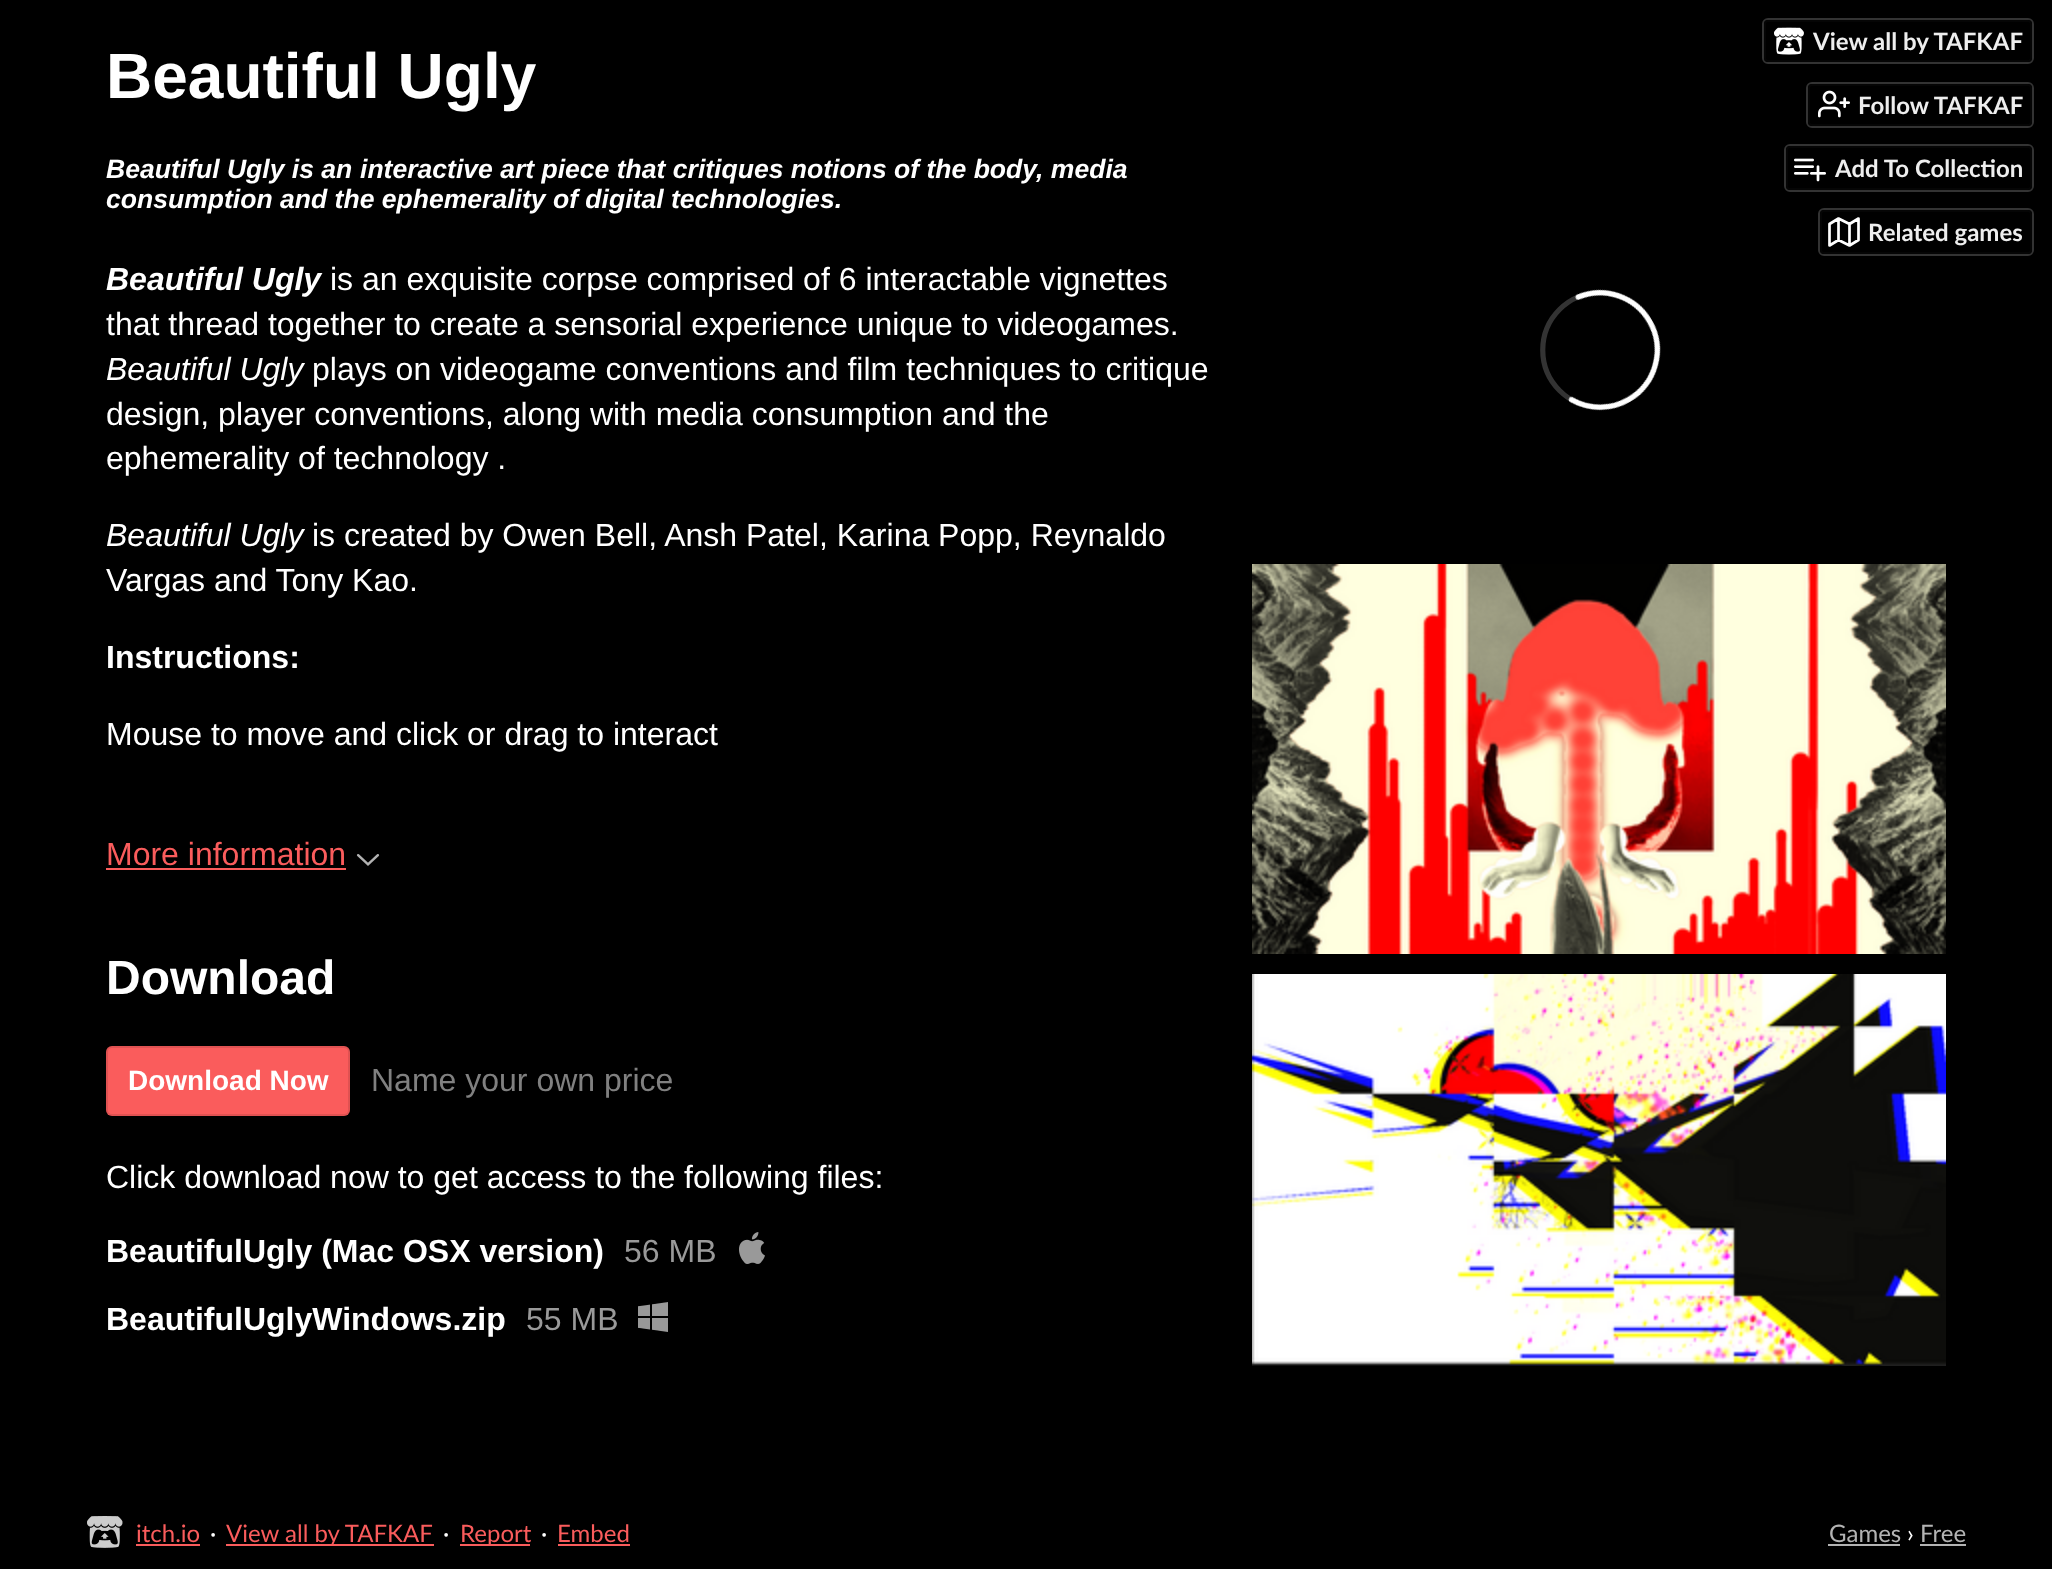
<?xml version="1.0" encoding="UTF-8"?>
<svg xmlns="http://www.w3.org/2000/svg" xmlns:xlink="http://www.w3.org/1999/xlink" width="2052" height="1569">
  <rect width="100%" height="100%" fill="#000000" />
  <rect x="1763" y="19" width="270" height="44" rx="5" fill="none" stroke="#333333" stroke-width="2" />
  <rect x="1764" y="20" width="268" height="42" rx="4" fill="#000000" fill-opacity="0.6" />
  <rect x="1765" y="21" width="266" height="40" rx="3" fill="none" stroke="#0a0a0a" stroke-opacity="0.5" stroke-width="2" />
  <image x="1774" y="27" width="30" height="28" xlink:href="image1.png" />
  <rect x="1807" y="83" width="226" height="44" rx="5" fill="none" stroke="#333333" stroke-width="2" />
  <rect x="1808" y="84" width="224" height="42" rx="4" fill="#000000" fill-opacity="0.6" />
  <rect x="1809" y="85" width="222" height="40" rx="3" fill="none" stroke="#0a0a0a" stroke-opacity="0.5" stroke-width="2" />
  <image x="1818" y="90" width="32" height="28" xlink:href="image2.png" />
  <rect x="1785" y="145" width="248" height="46" rx="5" fill="none" stroke="#333333" stroke-width="2" />
  <rect x="1786" y="146" width="246" height="44" rx="4" fill="#000000" fill-opacity="0.6" />
  <rect x="1787" y="147" width="244" height="42" rx="3" fill="none" stroke="#0a0a0a" stroke-opacity="0.5" stroke-width="2" />
  <image x="1794" y="158" width="32" height="24" xlink:href="image3.png" />
  <rect x="1819" y="209" width="214" height="46" rx="5" fill="none" stroke="#333333" stroke-width="2" />
  <rect x="1820" y="210" width="212" height="44" rx="4" fill="#000000" fill-opacity="0.6" />
  <rect x="1821" y="211" width="210" height="42" rx="3" fill="none" stroke="#0a0a0a" stroke-opacity="0.5" stroke-width="2" />
  <path d="M 1829.5 224 v 21.5 l 9 -5.5 l 11 5.5 l 9 -5.5 v -21.5 l -9 5.5 l -11 -5.5 z m 9 -5.5 v 21.5 m 11 -16 v 21.5" fill="none" stroke="#ffffff" stroke-width="2.7" stroke-linecap="round" stroke-linejoin="round" />
  <rect x="106" y="868" width="240" height="2" fill="#fa5c5c" />
  <image x="356" y="854" width="24" height="12" xlink:href="image4.png" />
  <rect x="106" y="1046" width="244" height="70" rx="6" fill="#fa5c5c" />
  <rect x="107" y="1047" width="242" height="68" rx="5" fill="none" stroke="#000000" stroke-opacity="0.1" stroke-width="2" />
  <image x="739" y="1232" width="26" height="32" xlink:href="image5.png" />
  <image x="638" y="1302" width="30" height="30" xlink:href="image6.png" />
  <image x="1540" y="289" width="121" height="122" xlink:href="image7.png" />
  <image x="1252" y="564" width="694" height="390" xlink:href="image8.png" />
  <image x="1252" y="974" width="694" height="392" xlink:href="image9.png" />
  <image x="87" y="1516" width="36" height="32" xlink:href="image10.png" />
  <rect x="136" y="1544" width="64" height="2" fill="#fa5c5c" />
  <rect x="226" y="1544" width="208" height="2" fill="#fa5c5c" />
  <rect x="460" y="1544" width="70" height="2" fill="#fa5c5c" />
  <rect x="558" y="1544" width="72" height="2" fill="#fa5c5c" />
  <rect x="1828" y="1544" width="72" height="2" fill="#b3b3b3" />
  <rect x="1920" y="1544" width="46" height="2" fill="#b3b3b3" />
  <text x="1813" y="50" style="font-family: Lato; font-size: 24px; font-weight: bold; fill: #eeeeee">View all by TAFKAF</text>
  <text x="1858" y="114" style="font-family: Lato; font-size: 24px; font-weight: bold; fill: #eeeeee">Follow TAFKAF</text>
  <text x="1835" y="177" style="font-family: Lato; font-size: 24px; font-weight: bold; fill: #eeeeee">Add To Collection</text>
  <text x="1868" y="241" style="font-family: Lato; font-size: 24px; font-weight: bold; fill: #eeeeee">Related games</text>
  <text x="106" y="98" style="font-family: Liberation Sans; font-size: 64px; font-weight: bold; fill: #ffffff">Beautiful Ugly</text>
  <text x="106" y="178" style="font-family: Liberation Sans; font-size: 26.55px; font-weight: bold; font-style: italic; fill: #ffffff">Beautiful Ugly is an</text>
  <text x="360" y="178" style="font-family: Liberation Sans; font-size: 26.55px; font-weight: bold; font-style: italic; fill: #ffffff">interactive art piece that critiques notions of the body, media</text>
  <text x="106" y="208" style="font-family: Liberation Sans; font-size: 26.55px; font-weight: bold; font-style: italic; fill: #ffffff">consumption and the ephemerality of digital technologies.</text>
  <text x="106" y="290" style="font-family: Liberation Sans; font-size: 32px; font-weight: bold; font-style: italic; fill: #ffffff">Beautiful Ugly</text>
  <text x="330" y="290" style="font-family: Liberation Sans; font-size: 32px; fill: #ffffff">is an exquisite corpse comprised of 6 interactable vignettes</text>
  <text x="106" y="335" style="font-family: Liberation Sans; font-size: 32px; fill: #ffffff">that thread together to create a sensorial experience unique to videogames.</text>
  <text x="106" y="380" style="font-family: Liberation Sans; font-size: 32px; font-style: italic; fill: #ffffff">Beautiful Ugly</text>
  <text x="312" y="380" style="font-family: Liberation Sans; font-size: 32px; fill: #ffffff">plays on videogame conventions and film techniques to critique</text>
  <text x="106" y="425" style="font-family: Liberation Sans; font-size: 32px; fill: #ffffff">design, player conventions, along with media consumption and the</text>
  <text x="106" y="469" style="font-family: Liberation Sans; font-size: 32px; fill: #ffffff">ephemerality of technology .</text>
  <text x="106" y="546" style="font-family: Liberation Sans; font-size: 32px; font-style: italic; fill: #ffffff">Beautiful Ugly</text>
  <text x="312" y="546" style="font-family: Liberation Sans; font-size: 32px; fill: #ffffff">is created by Owen Bell, Ansh Patel, Karina Popp, Reynaldo</text>
  <text x="106" y="591" style="font-family: Liberation Sans; font-size: 32px; fill: #ffffff">Vargas and Tony Kao.</text>
  <text x="106" y="668" style="font-family: Liberation Sans; font-size: 32px; font-weight: bold; fill: #ffffff">Instructions:</text>
  <text x="106" y="745" style="font-family: Liberation Sans; font-size: 32px; fill: #ffffff">Mouse to move and click or drag to interact</text>
  <text x="106" y="865" style="font-family: Liberation Sans; font-size: 32px; fill: #fa5c5c">More information</text>
  <text x="106" y="994" style="font-family: Liberation Sans; font-size: 48px; font-weight: bold; fill: #ffffff">Download</text>
  <text x="128" y="1090" style="font-family: Liberation Sans; font-size: 28px; font-weight: bold; fill: #ffffff">Download Now</text>
  <text x="371" y="1091" style="font-family: Liberation Sans; font-size: 32px; fill: #808080">Name your own price</text>
  <text x="106" y="1188" style="font-family: Liberation Sans; font-size: 32px; fill: #ffffff">Click download now to get access to the following files:</text>
  <text x="106" y="1262" style="font-family: Liberation Sans; font-size: 32px; font-weight: bold; fill: #ffffff">BeautifulUgly (Mac OSX version)</text>
  <text x="624" y="1262" style="font-family: Liberation Sans; font-size: 32px; fill: #999999">56 MB</text>
  <text x="106" y="1330" style="font-family: Liberation Sans; font-size: 32px; font-weight: bold; fill: #ffffff">BeautifulUglyWindows.zip</text>
  <text x="526" y="1330" style="font-family: Liberation Sans; font-size: 32px; fill: #999999">55 MB</text>
  <text x="136" y="1542" style="font-family: Lato; font-size: 24px; fill: #fa5c5c">itch.io</text>
  <text x="210" y="1542" style="font-family: Lato; font-size: 24px; fill: #ffffff">·</text>
  <text x="226" y="1542" style="font-family: Lato; font-size: 24px; fill: #fa5c5c">View all by TAFKAF</text>
  <text x="443" y="1542" style="font-family: Lato; font-size: 24px; fill: #ffffff">·</text>
  <text x="460" y="1542" style="font-family: Lato; font-size: 24px; fill: #fa5c5c">Report</text>
  <text x="541" y="1542" style="font-family: Lato; font-size: 24px; fill: #ffffff">·</text>
  <text x="557" y="1542" style="font-family: Lato; font-size: 24px; fill: #fa5c5c">Embed</text>
  <text x="1829" y="1542" style="font-family: Lato; font-size: 24px; fill: #b3b3b3">Games</text>
  <text x="1907" y="1542" style="font-family: Lato; font-size: 24px; fill: #ffffff">›</text>
  <text x="1920" y="1542" style="font-family: Lato; font-size: 24px; fill: #b3b3b3">Free</text>
</svg>
